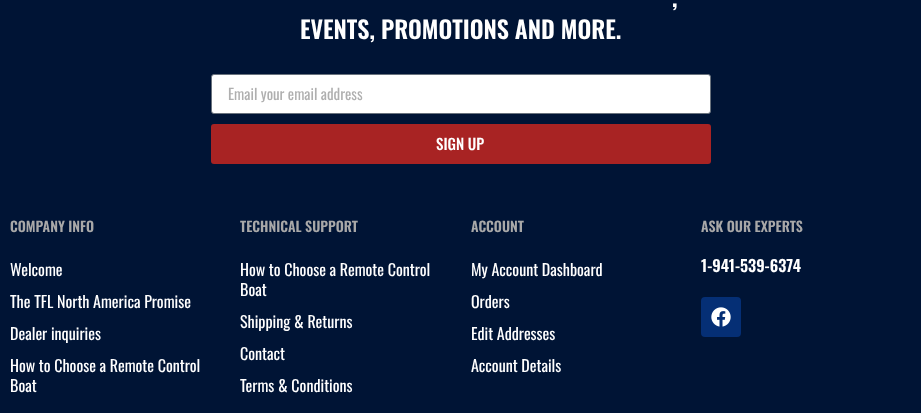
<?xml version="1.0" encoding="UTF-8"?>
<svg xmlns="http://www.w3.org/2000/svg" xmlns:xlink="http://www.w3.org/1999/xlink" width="921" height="413">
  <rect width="100%" height="100%" fill="#001435" />
  <rect x="211.5" y="74.5" width="499" height="39" rx="2.5" fill="#ffffff" stroke="#69727d" />
  <rect x="211" y="124" width="500" height="40" rx="3" fill="#a82323" />
  <rect x="701" y="297" width="40" height="40" rx="4" fill="#052f75" />
  <image x="711" y="307" width="20" height="20" xlink:href="image1.png" />
  <text x="672" y="7" style="font-family: Oswald; font-size: 24px; font-weight: 600; fill: #ffffff">,</text>
  <text x="300" y="39" style="font-family: Oswald; font-size: 24px; font-weight: 600; fill: #ffffff">EVENTS, PROMOTIONS AND MORE.</text>
  <text x="228" y="100" style="font-family: Oswald; font-size: 15px; fill: #afafaf">Email your email address</text>
  <text x="436" y="150" style="font-family: Oswald; font-size: 15px; font-weight: 500; fill: #ffffff">SIGN UP</text>
  <text x="10" y="232" style="font-family: Oswald; font-size: 14px; font-weight: 600; fill: #a8a8a8">COMPANY INFO</text>
  <text x="10" y="276" style="font-family: Oswald; font-size: 16px; fill: #ffffff">Welcome</text>
  <text x="10" y="308" style="font-family: Oswald; font-size: 16px; fill: #ffffff">The TFL North America Promise</text>
  <text x="10" y="340" style="font-family: Oswald; font-size: 16px; fill: #ffffff">Dealer inquiries</text>
  <text x="10" y="372" style="font-family: Oswald; font-size: 16px; fill: #ffffff">How to Choose a Remote Control</text>
  <text x="10" y="392" style="font-family: Oswald; font-size: 16px; fill: #ffffff">Boat</text>
  <text x="240" y="232" style="font-family: Oswald; font-size: 14px; font-weight: 600; fill: #a8a8a8">TECHNICAL SUPPORT</text>
  <text x="240" y="276" style="font-family: Oswald; font-size: 16px; fill: #ffffff">How to Choose a Remote Control</text>
  <text x="240" y="296" style="font-family: Oswald; font-size: 16px; fill: #ffffff">Boat</text>
  <text x="240" y="328" style="font-family: Oswald; font-size: 16px; fill: #ffffff">Shipping &amp; Returns</text>
  <text x="240" y="360" style="font-family: Oswald; font-size: 16px; fill: #ffffff">Contact</text>
  <text x="240" y="392" style="font-family: Oswald; font-size: 16px; fill: #ffffff">Terms &amp; Conditions</text>
  <text x="471" y="232" style="font-family: Oswald; font-size: 14px; font-weight: 600; fill: #a8a8a8">ACCOUNT</text>
  <text x="471" y="276" style="font-family: Oswald; font-size: 16px; fill: #ffffff">My Account Dashboard</text>
  <text x="471" y="308" style="font-family: Oswald; font-size: 16px; fill: #ffffff">Orders</text>
  <text x="471" y="340" style="font-family: Oswald; font-size: 16px; fill: #ffffff">Edit Addresses</text>
  <text x="471" y="372" style="font-family: Oswald; font-size: 16px; fill: #ffffff">Account Details</text>
  <text x="701" y="232" style="font-family: Oswald; font-size: 14px; font-weight: 600; fill: #a8a8a8">ASK OUR EXPERTS</text>
  <text x="701" y="272" style="font-family: Oswald; font-size: 16px; font-weight: 600; fill: #ffffff">1-941-539-6374</text>
</svg>
